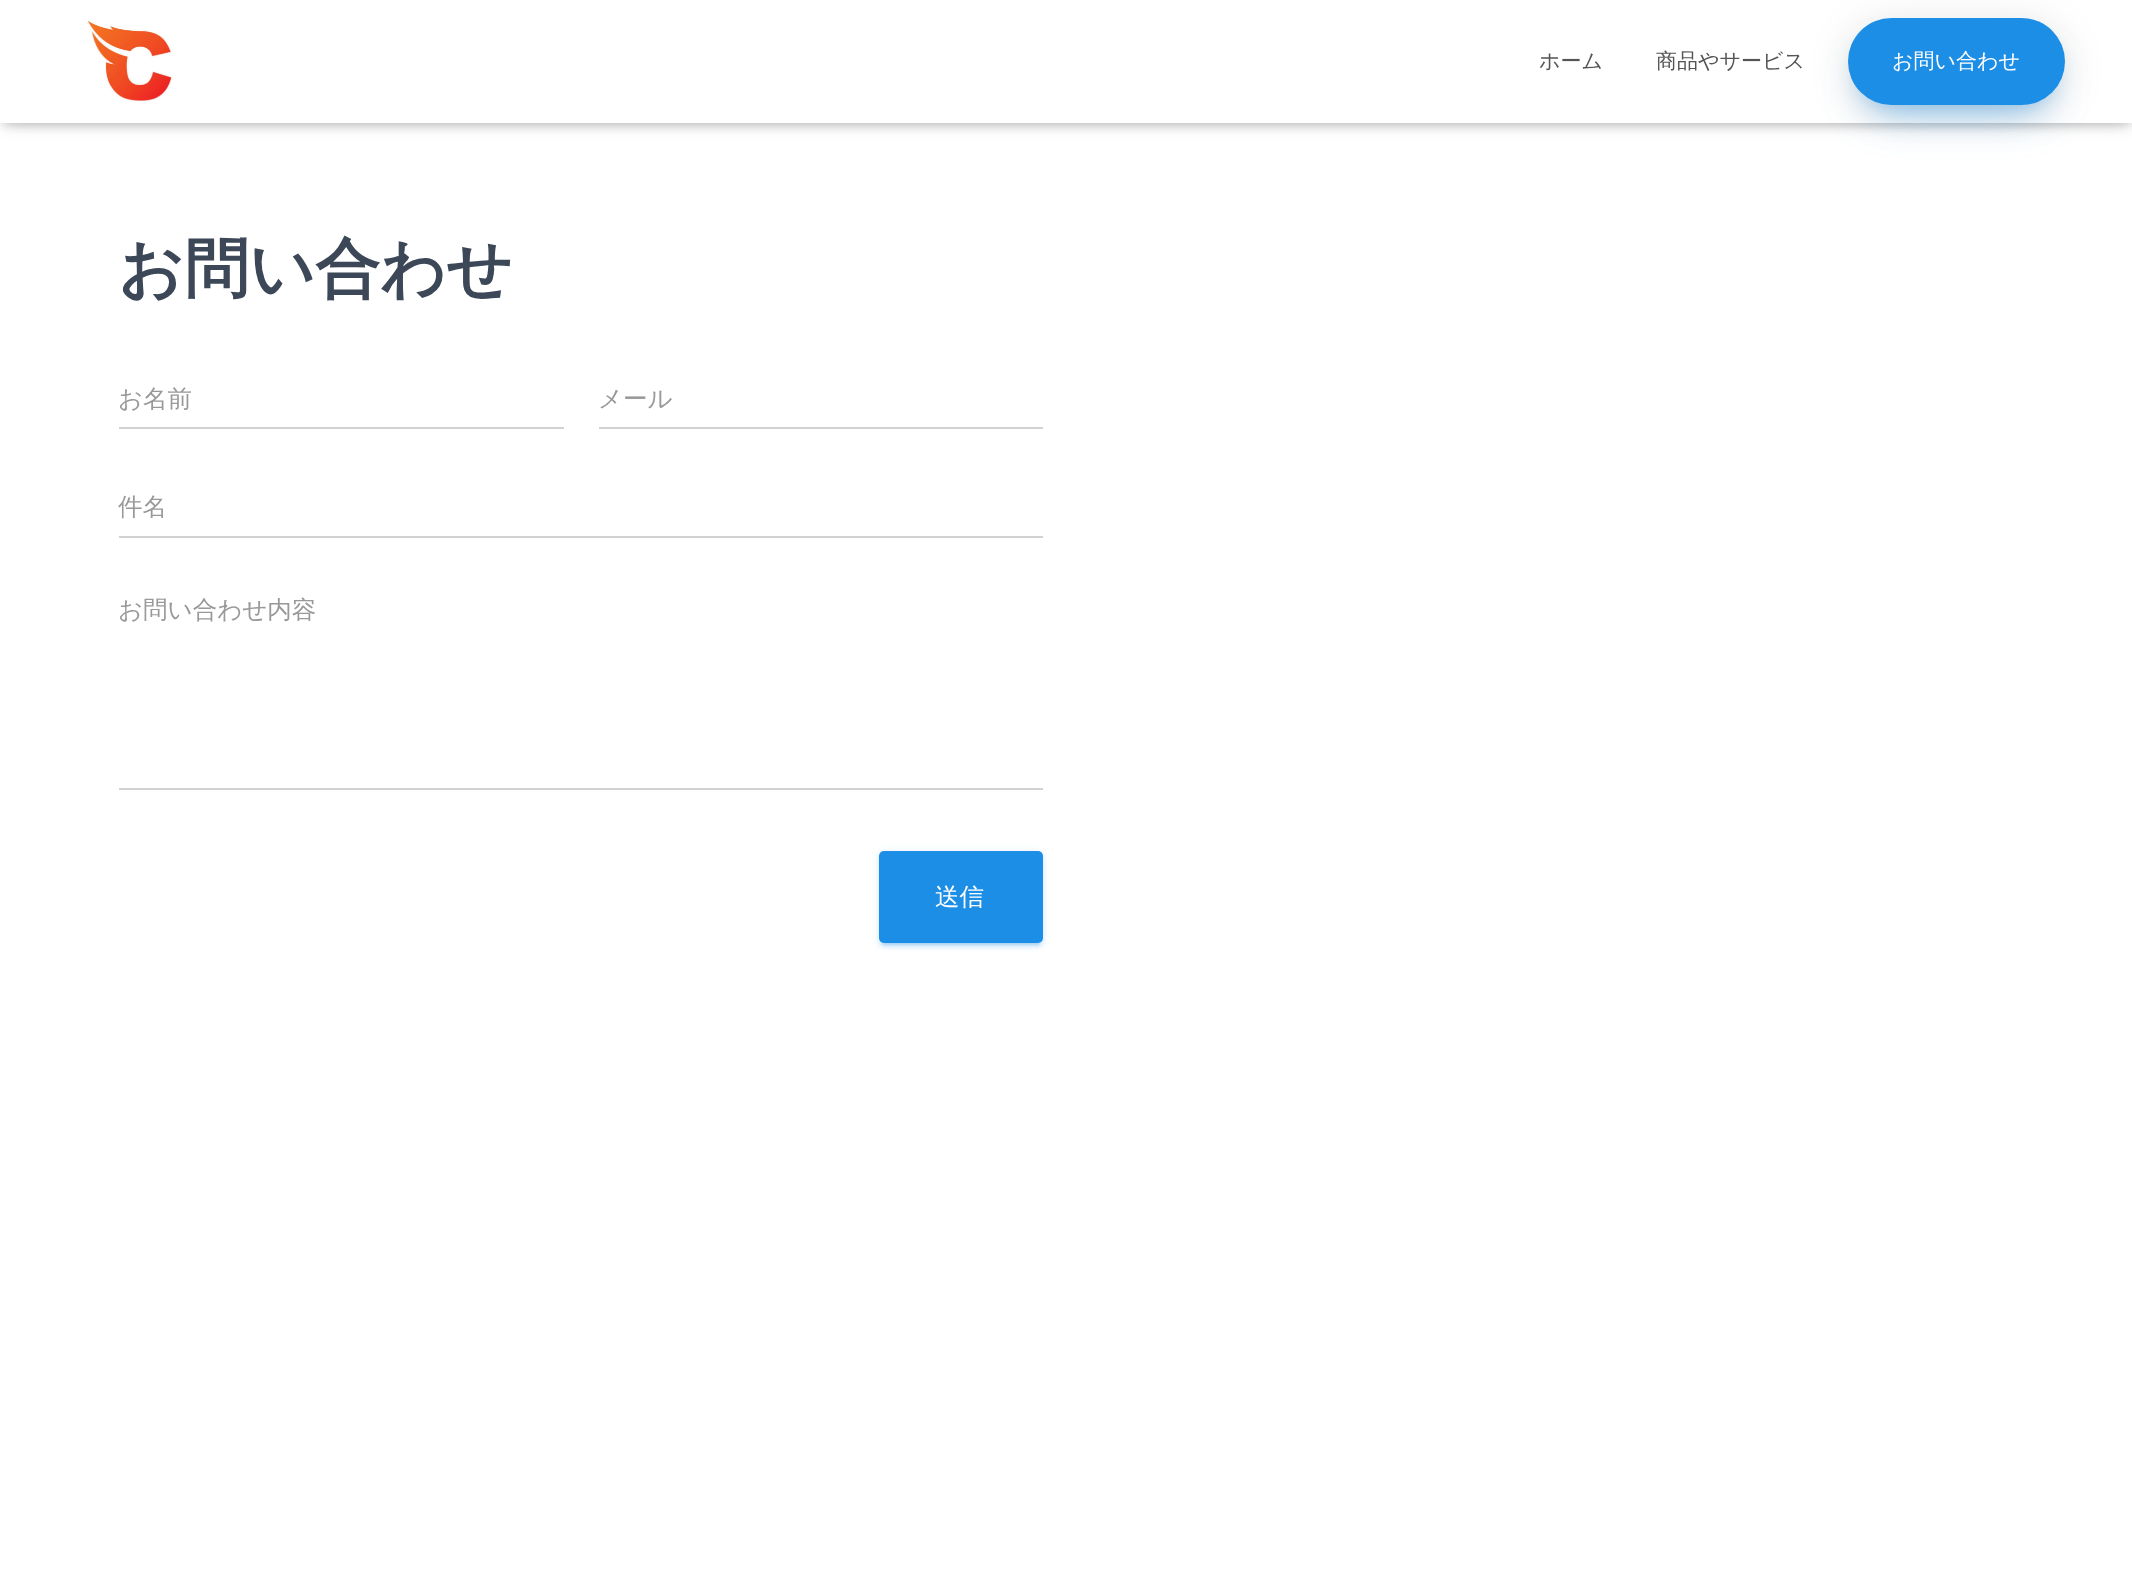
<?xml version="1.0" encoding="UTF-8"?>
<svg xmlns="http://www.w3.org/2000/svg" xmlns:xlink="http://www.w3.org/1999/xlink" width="2132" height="1586">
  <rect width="100%" height="100%" fill="#ffffff" />
  <rect x="4" y="11" width="2126" height="115" fill="#000000" fill-opacity="0.1" filter="blur(4.5px)" />
  <rect y="2" width="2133" height="122" fill="#000000" fill-opacity="0.12" filter="blur(9px)" />
  <rect x="11" y="12" width="2112" height="102" fill="#000000" fill-opacity="0.42" filter="blur(9px)" />
  <rect width="2132" height="123" fill="#ffffff" />
  <image x="86" y="20" width="87" height="83" xlink:href="image1.png" />
  <rect x="1857" y="40" width="199" height="70" rx="35" fill="#1d8ee5" fill-opacity="0.2" filter="blur(9px)" />
  <rect x="1848" y="25" width="217" height="87" rx="43.5" fill="#000000" fill-opacity="0.12" filter="blur(20px)" />
  <rect x="1869" y="63" width="175" height="46" rx="23" fill="#1d8ee5" fill-opacity="0.42" filter="blur(23px)" />
  <rect x="1848" y="18" width="217" height="87" rx="43.5" fill="#1d8ee5" />
  <rect x="119" y="427" width="445" height="2" fill="#d2d2d2" />
  <rect x="599" y="427" width="444" height="2" fill="#d2d2d2" />
  <rect x="119" y="536" width="924" height="2" fill="#d2d2d2" />
  <rect x="119" y="788" width="924" height="2" fill="#d2d2d2" />
  <rect x="879" y="852" width="164" height="93" rx="5" fill="#1d8ee5" fill-opacity="0.12" filter="blur(4.5px)" />
  <rect x="882" y="859" width="158" height="86" rx="2" fill="#1d8ee5" fill-opacity="0.2" filter="blur(1px)" />
  <rect x="879" y="854" width="164" height="93" rx="5" fill="#1d8ee5" fill-opacity="0.14" filter="blur(2px)" />
  <rect x="879" y="851" width="164" height="92" rx="5" fill="#1d8ee5" />
  <text x="1539" y="68" style="font-family: WenQuanYi Zen Hei; font-size: 21px; font-weight: 500; fill: #555555">ホーム</text>
  <text x="1656" y="68" style="font-family: WenQuanYi Zen Hei; font-size: 21px; font-weight: 500; fill: #555555">商品やサービス</text>
  <text x="1892" y="68" style="font-family: WenQuanYi Zen Hei; font-size: 21px; font-weight: 500; fill: #ffffff">お問い合わせ</text>
  <text x="118" y="291" style="font-family: WenQuanYi Zen Hei; font-size: 64.75px; font-weight: bold; fill: #3c4858">お問い合わせ</text>
  <text x="118" y="407" style="font-family: WenQuanYi Zen Hei; font-size: 24.5px; font-weight: 500; fill: #999999">お名前</text>
  <text x="598" y="407" style="font-family: WenQuanYi Zen Hei; font-size: 24.5px; font-weight: 500; fill: #999999">メール</text>
  <text x="118" y="515" style="font-family: WenQuanYi Zen Hei; font-size: 24.5px; font-weight: 500; fill: #999999">件名</text>
  <text x="118" y="618" style="font-family: WenQuanYi Zen Hei; font-size: 24.5px; font-weight: 500; fill: #999999">お問い合わせ内容</text>
  <text x="935" y="905" style="font-family: WenQuanYi Zen Hei; font-size: 24.5px; font-weight: 500; fill: #ffffff">送信</text>
</svg>
